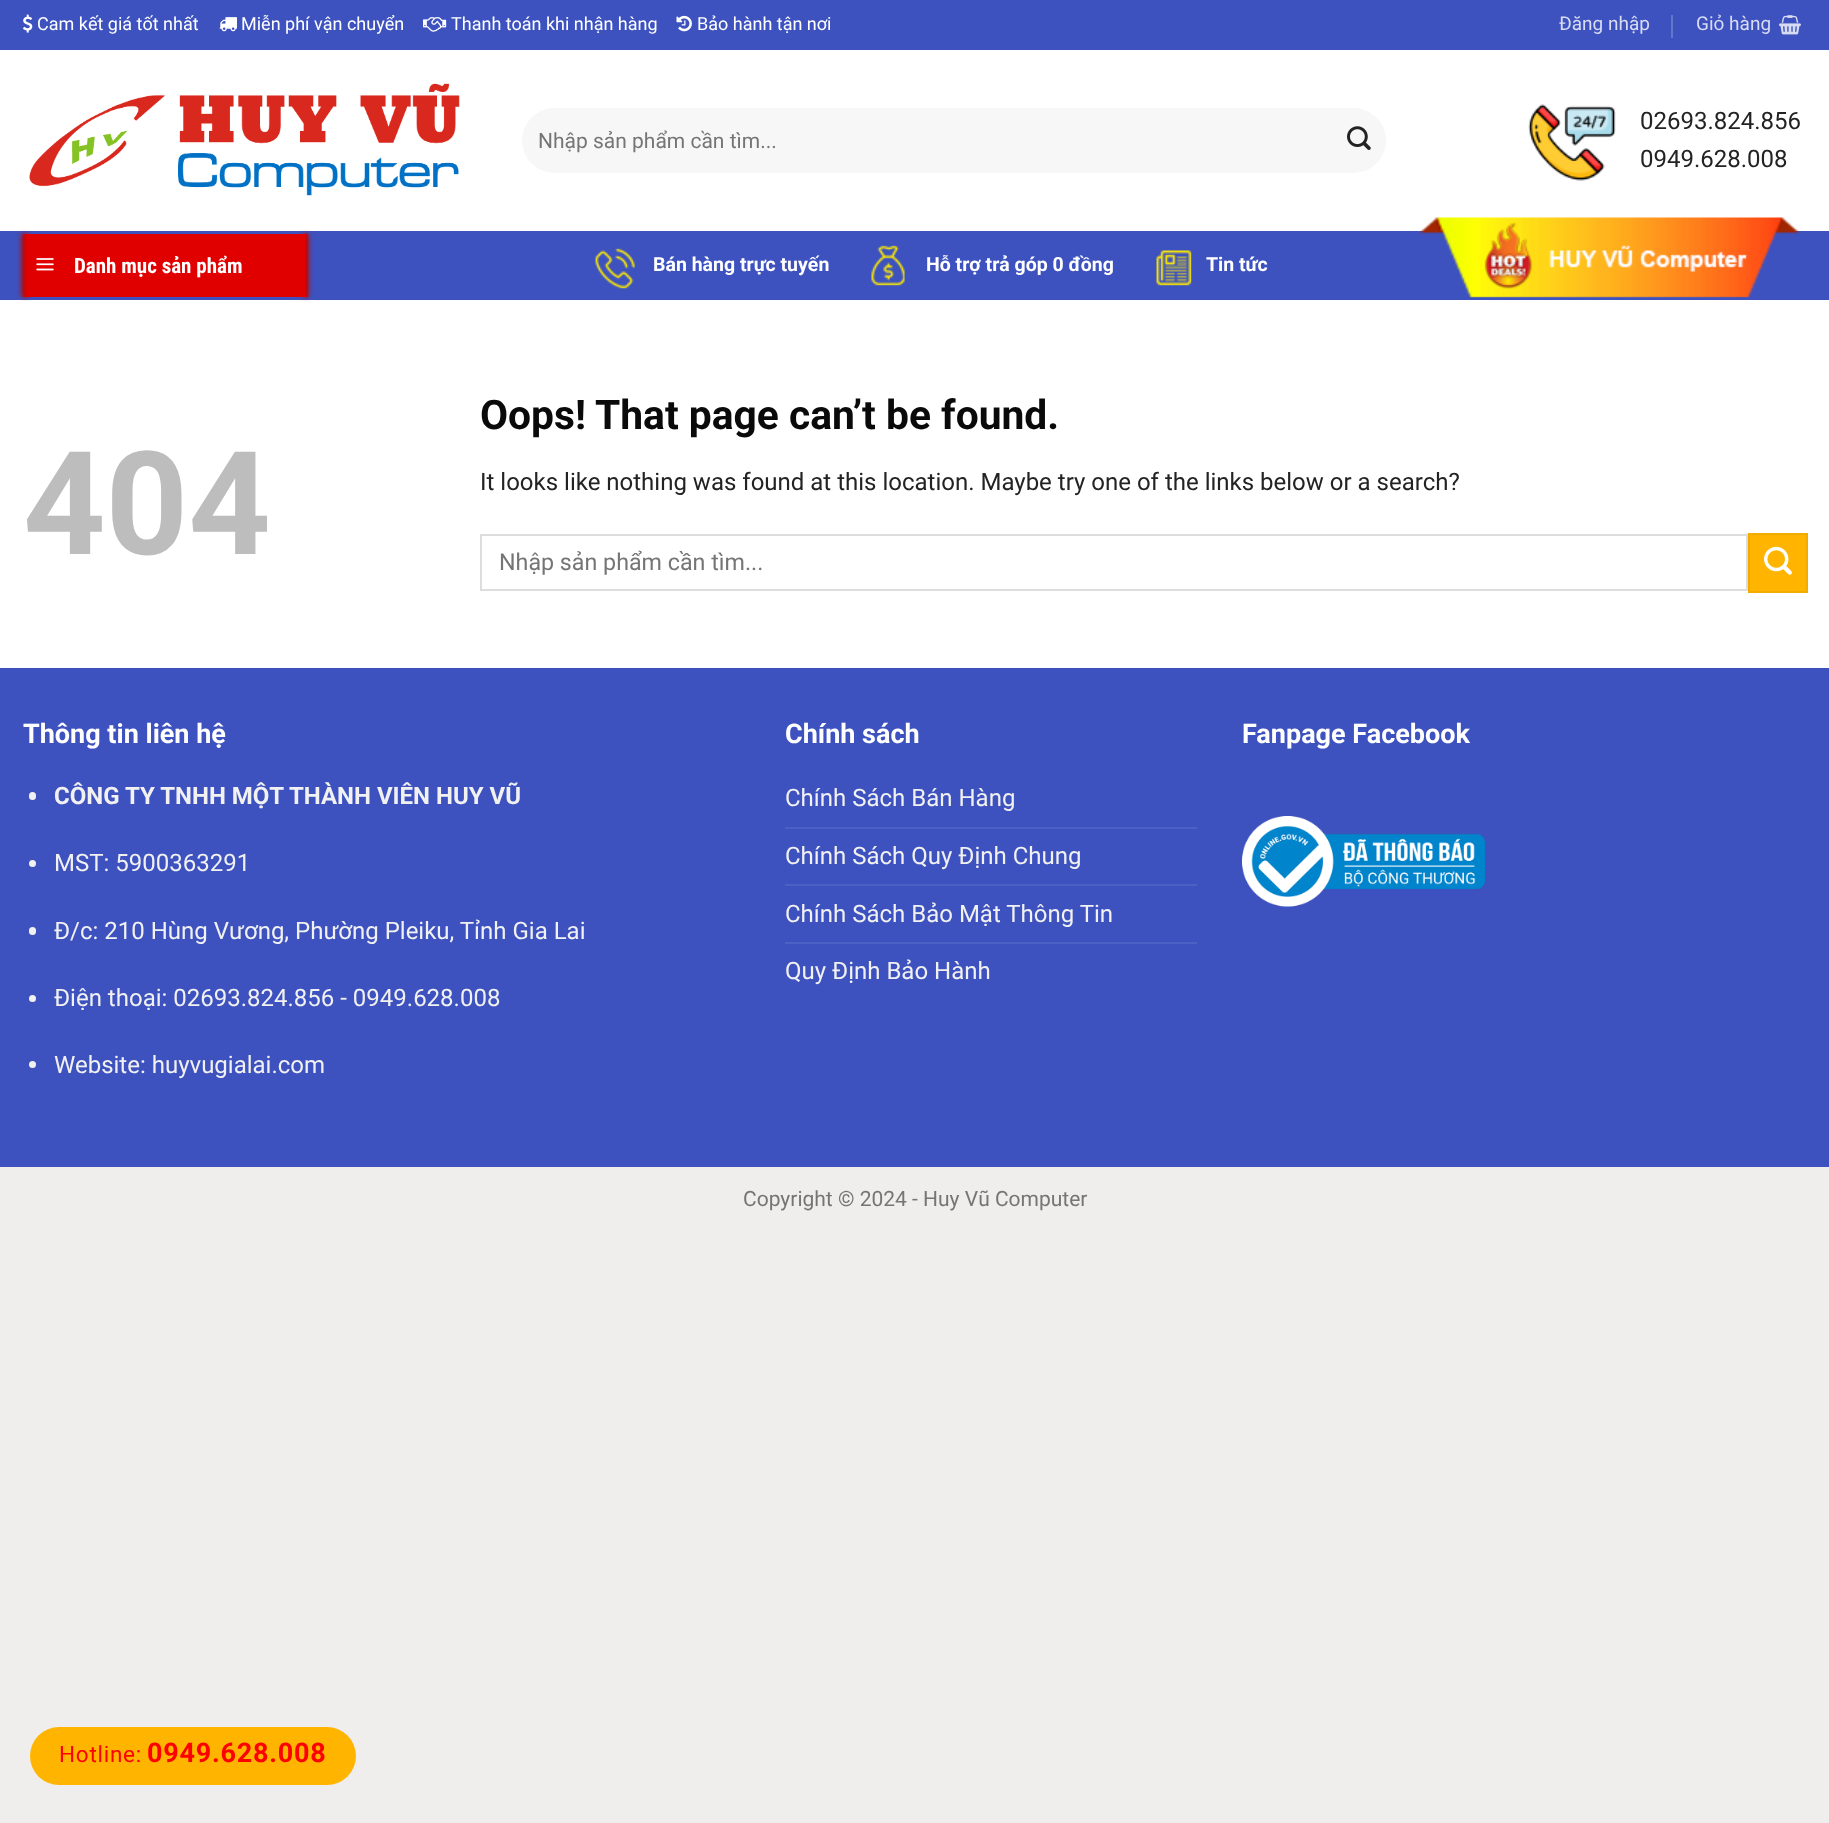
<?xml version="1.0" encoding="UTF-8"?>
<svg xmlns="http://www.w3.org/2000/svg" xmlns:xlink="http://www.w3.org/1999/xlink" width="1829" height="1823">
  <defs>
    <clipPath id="clip1"><path d="M 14 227 h 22 v 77 h -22 z m 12 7 h 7 v 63 h -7 z" clip-rule="evenodd" /></clipPath>
    <clipPath id="clip2"><path d="M 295 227 h 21 v 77 h -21 z m 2 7 h 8 v 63 h -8 z" clip-rule="evenodd" /></clipPath>
  </defs>
  <rect width="100%" height="100%" fill="#f0eded" />
  <rect y="50" width="1829" height="618" fill="#ffffff" />
  <rect width="1829" height="50" fill="#3d52bf" />
  <image x="23" y="14" width="10" height="19" xlink:href="image1.png" />
  <image x="219" y="17" width="18" height="15" xlink:href="image2.png" />
  <image x="423" y="17" width="24" height="15" xlink:href="image3.png" />
  <image x="676" y="15" width="16" height="17" xlink:href="image4.png" />
  <rect x="1671" y="15" width="2" height="23" fill="#6475cc" />
  <image x="1779" y="15" width="22" height="20" xlink:href="image5.png" />
  <image x="29" y="83" width="431" height="113" xlink:href="image6.png" />
  <rect x="522" y="108" width="864" height="65" rx="32.5" fill="#f7f7f7" />
  <image x="1347" y="126" width="24" height="24" xlink:href="image7.png" />
  <image x="1528" y="104" width="88" height="77" xlink:href="image8.png" />
  <rect y="231" width="1829" height="69" fill="#3d52bf" />
  <rect x="23" y="234" width="285" height="63" fill="#e10000" />
  <g clip-path="url(#clip1)">
    <rect x="21" y="234" width="8" height="63" fill="#b30e10" filter="blur(2px)" />
  </g>
  <image x="36" y="258" width="18" height="13" xlink:href="image9.png" />
  <g clip-path="url(#clip2)">
    <rect x="302" y="234" width="7" height="63" fill="#b30e10" filter="blur(2px)" />
  </g>
  <image x="595" y="248" width="40" height="41" xlink:href="image10.png" />
  <image x="871" y="245" width="34" height="41" xlink:href="image11.png" />
  <image x="1156" y="250" width="36" height="36" xlink:href="image12.png" />
  <image x="1420" y="217" width="379" height="81" xlink:href="image13.png" />
  <rect x="481" y="535" width="1266" height="55" fill="none" stroke="#dddddd" stroke-width="2" />
  <rect x="1749" y="534" width="58" height="58" fill="#ffb400" stroke="#f2ab00" stroke-width="2" />
  <image x="1764" y="546" width="28" height="29" xlink:href="image14.png" />
  <rect y="668" width="1829" height="499" fill="#3d52bf" />
  <rect x="29" y="792" width="7" height="8" rx="3.5" fill="#f1f1f1" />
  <circle cx="32.5" cy="863.5" r="3.5" fill="#f1f1f1" />
  <rect x="29" y="927" width="7" height="8" rx="3.5" fill="#f1f1f1" />
  <circle cx="32.5" cy="998.5" r="3.5" fill="#f1f1f1" />
  <circle cx="32.5" cy="1064.5" r="3.5" fill="#f1f1f1" />
  <rect x="785" y="827" width="412" height="2" fill="#4d60c4" />
  <rect x="785" y="884" width="412" height="2" fill="#4d60c4" />
  <rect x="785" y="942" width="412" height="2" fill="#4d60c4" />
  <image x="1242" y="816" width="243" height="91" xlink:href="image15.png" />
  <rect x="30" y="1727" width="326" height="58" rx="29" fill="#ffb400" />
  <text x="37" y="30" style="font-family: Roboto; font-size: 18px; fill: #ffffff">Cam kết giá tốt nhất</text>
  <text x="241" y="30" style="font-family: Roboto; font-size: 18px; fill: #ffffff">Miễn phí vận chuyển</text>
  <text x="451" y="30" style="font-family: Roboto; font-size: 18px; fill: #ffffff">Thanh toán khi nhận hàng</text>
  <text x="697" y="30" style="font-family: Roboto; font-size: 18px; fill: #ffffff">Bảo hành tận nơi</text>
  <text x="1559" y="30" style="font-family: Roboto; font-size: 19px; fill: #d8dcf2">Đăng nhập</text>
  <text x="1696" y="30" style="font-family: Roboto; font-size: 19px; fill: #d8dcf2">Giỏ hàng</text>
  <text x="538" y="148" style="font-family: Roboto; font-size: 21px; fill: #757575">Nhập sản phẩm cần tìm...</text>
  <text x="1640" y="129" style="font-family: Roboto; font-size: 24px; fill: #232323">02693.824.856</text>
  <text x="1640" y="167" style="font-family: Roboto; font-size: 24px; fill: #232323">0949.628.008</text>
  <text x="74" y="273" style="font-family: Roboto Condensed; font-size: 21px; font-weight: bold; fill: #ffffff">Danh mục sản phẩm</text>
  <text x="653" y="271" style="font-family: Roboto; font-size: 19.5px; font-weight: bold; fill: #ffffff">Bán hàng trực tuyến</text>
  <text x="926" y="271" style="font-family: Roboto; font-size: 19.5px; font-weight: bold; fill: #ffffff">Hỗ trợ trả góp 0 đồng</text>
  <text x="1206" y="271" style="font-family: Roboto; font-size: 19.5px; font-weight: bold; fill: #ffffff">Tin tức</text>
  <text x="23" y="554" style="font-family: Roboto; font-size: 144px; font-weight: bold; fill: #bdbdbd">404</text>
  <text x="480" y="429" style="font-family: Roboto; font-size: 40.75px; font-weight: bold; fill: #0a0a0a">Oops! That page can’t be found.</text>
  <text x="480" y="490" style="font-family: Roboto; font-size: 24px; fill: #232323">It looks like nothing was found at this location. Maybe try one of the links below or a search?</text>
  <text x="499" y="570" style="font-family: Roboto; font-size: 23.25px; fill: #757575">Nhập sản phẩm cần tìm...</text>
  <text x="23" y="743" style="font-family: Roboto; font-size: 27px; font-weight: bold; fill: #ffffff">Thông tin liên hệ</text>
  <text x="54" y="804" style="font-family: Roboto; font-size: 24px; font-weight: bold; fill: #f1f1f1">CÔNG TY TNHH MỘT THÀNH VIÊN HUY VŨ</text>
  <text x="54" y="871" style="font-family: Roboto; font-size: 24px; fill: #f1f1f1">MST: 5900363291</text>
  <text x="54" y="939" style="font-family: Roboto; font-size: 24px; fill: #f1f1f1">Đ/c: 210 Hùng Vương, Phường Pleiku, Tỉnh Gia Lai</text>
  <text x="54" y="1006" style="font-family: Roboto; font-size: 24px; fill: #f1f1f1">Điện thoại: 02693.824.856 - 0949.628.008</text>
  <text x="54" y="1073" style="font-family: Roboto; font-size: 24px; fill: #f1f1f1">Website: huyvugialai.com</text>
  <text x="785" y="743" style="font-family: Roboto; font-size: 27px; font-weight: bold; fill: #ffffff">Chính sách</text>
  <text x="785" y="806" style="font-family: Roboto; font-size: 24px; fill: #f1f1f1">Chính Sách Bán Hàng</text>
  <text x="785" y="864" style="font-family: Roboto; font-size: 24px; fill: #f1f1f1">Chính Sách Quy Định Chung</text>
  <text x="785" y="922" style="font-family: Roboto; font-size: 24px; fill: #f1f1f1">Chính Sách Bảo Mật Thông Tin</text>
  <text x="785" y="979" style="font-family: Roboto; font-size: 24px; fill: #f1f1f1">Quy Định Bảo Hành</text>
  <text x="1242" y="743" style="font-family: Roboto; font-size: 27px; font-weight: bold; fill: #ffffff">Fanpage Facebook</text>
  <text x="743" y="1206" style="font-family: Roboto; font-size: 21px; fill: #757575">Copyright © 2024 - Huy Vũ Computer</text>
  <text x="59" y="1762" style="font-family: Roboto; font-size: 22.5px; letter-spacing: 0.75px; fill: #ff0000">Hotline:</text>
  <text x="147" y="1762" style="font-family: Roboto; font-size: 27px; font-weight: bold; letter-spacing: 0.75px; fill: #ff0000">0949.628.008</text>
</svg>
